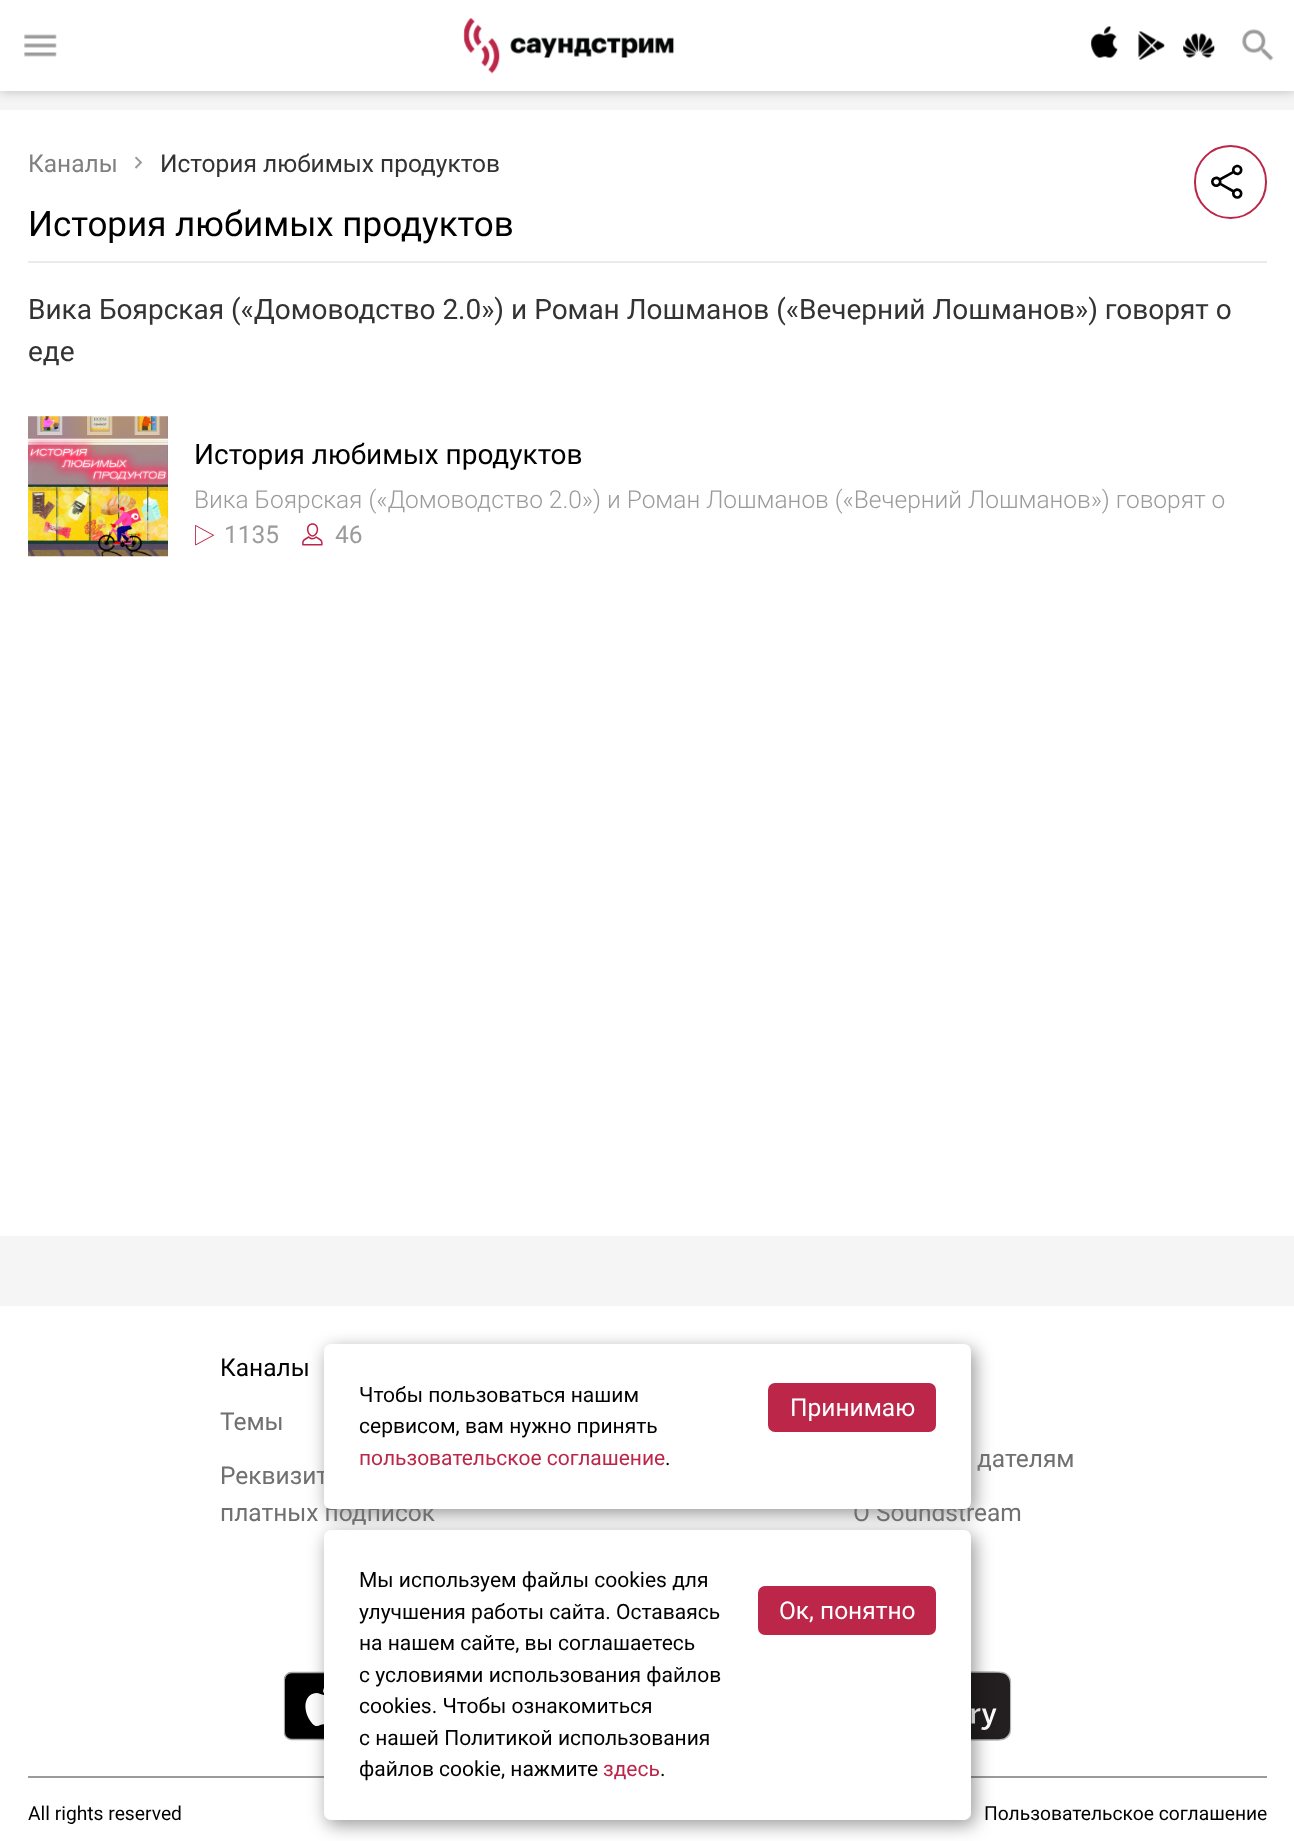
<?xml version="1.0" encoding="UTF-8"?>
<svg xmlns="http://www.w3.org/2000/svg" xmlns:xlink="http://www.w3.org/1999/xlink" width="1294" height="1841">
  <rect width="100%" height="100%" fill="#f5f5f5" />
  <rect width="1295" height="91" fill="#000000" fill-opacity="0.24" filter="blur(6px)" />
  <rect width="1294" height="91" fill="#ffffff" />
  <image x="24" y="34" width="33" height="23" xlink:href="image1.png" />
  <image x="463" y="18" width="212" height="56" xlink:href="image2.png" />
  <image x="1090" y="26" width="28" height="32" xlink:href="image3.png" />
  <image x="1138" y="31" width="27" height="29" xlink:href="image4.png" />
  <image x="1183" y="33" width="32" height="25" xlink:href="image5.png" />
  <image x="1242" y="29" width="32" height="32" xlink:href="image6.png" />
  <rect y="110" width="1294" height="1126" fill="#ffffff" />
  <image x="134" y="156" width="9" height="13" xlink:href="image7.png" />
  <rect x="1195" y="146" width="71" height="72" rx="35.5" fill="none" stroke="#bb2649" stroke-width="2" />
  <image x="1211" y="164" width="32" height="35" xlink:href="image8.png" />
  <rect x="28" y="261" width="1239" height="2" fill="#ebebeb" />
  <image x="28" y="416" width="140" height="141" xlink:href="image9.png" />
  <image x="195" y="525" width="20" height="21" xlink:href="image10.png" />
  <image x="302" y="523" width="21" height="23" xlink:href="image11.png" />
  <rect y="1306" width="1294" height="535" fill="#ffffff" />
  <image x="283" y="1671" width="41" height="70" xlink:href="image12.png" />
  <image x="971" y="1671" width="41" height="70" xlink:href="image13.png" />
  <rect x="28" y="1776" width="1239" height="2" fill="#9b9b9b" />
  <rect x="327" y="1349" width="648" height="165" rx="7" fill="#000000" fill-opacity="0.4" filter="blur(9px)" />
  <text x="28" y="172" style="font-family: Roboto; font-size: 24.5px; fill: #808080">Каналы</text>
  <text x="160" y="172" style="font-family: Roboto; font-size: 24.5px; fill: #333333">История любимых продуктов</text>
  <text x="28" y="236" style="font-family: Roboto; font-size: 35px; fill: #000000">История любимых продуктов</text>
  <text x="28" y="319" style="font-family: Roboto; font-size: 28px; fill: #333333">Вика Боярская («Домоводство 2.0») и Роман Лошманов («Вечерний Лошманов») говорят о</text>
  <text x="28" y="361" style="font-family: Roboto; font-size: 28px; fill: #333333">еде</text>
  <text x="194" y="464" style="font-family: Roboto; font-size: 28px; fill: #000000">История любимых продуктов</text>
  <text x="194" y="508" style="font-family: Roboto; font-size: 24.5px; font-weight: 300; fill: #9b9b9b">Вика Боярская («Домоводство 2.0») и Роман Лошманов («Вечерний Лошманов») говорят о</text>
  <text x="224" y="543" style="font-family: Roboto; font-size: 24.5px; fill: #9b9b9b">1135</text>
  <text x="335" y="543" style="font-family: Roboto; font-size: 24.5px; fill: #9b9b9b">46</text>
  <text x="220" y="1376" style="font-family: Roboto; font-size: 24.5px; fill: #000000">Каналы</text>
  <text x="220" y="1430" style="font-family: Roboto; font-size: 24.5px; fill: #707070">Темы</text>
  <text x="220" y="1484" style="font-family: Roboto; font-size: 24.5px; fill: #707070">Реквизит</text>
  <text x="220" y="1521" style="font-family: Roboto; font-size: 24.5px; fill: #707070">платных подписок</text>
  <text x="977" y="1467" style="font-family: Roboto; font-size: 24.5px; fill: #707070">дателям</text>
  <text x="853" y="1521" style="font-family: Roboto; font-size: 24.5px; fill: #707070">О Soundstream</text>
  <text x="28" y="1820" style="font-family: Roboto; font-size: 19.25px; fill: #000000">All rights reserved</text>
  <text x="984" y="1820" style="font-family: Roboto; font-size: 19.25px; fill: #000000">Пользовательское соглашение</text>
  <rect x="324" y="1344" width="647" height="165" rx="7" fill="#ffffff" />
  <text x="359" y="1402" style="font-family: Roboto; font-size: 21px; fill: #000000">Чтобы пользоваться нашим</text>
  <text x="359" y="1433" style="font-family: Roboto; font-size: 21px; fill: #000000">сервисом, вам нужно принять</text>
  <text x="359" y="1465" style="font-family: Roboto; font-size: 21px; fill: #bb2649">пользовательское соглашение</text>
  <text x="665" y="1465" style="font-family: Roboto; font-size: 21px; fill: #000000">.</text>
  <rect x="768" y="1383" width="168" height="49" rx="7" fill="#bb2649" />
  <text x="790" y="1416" style="font-family: Roboto; font-size: 24.5px; fill: #ffffff">Принимаю</text>
  <rect x="327" y="1535" width="648" height="290" rx="7" fill="#000000" fill-opacity="0.4" filter="blur(9px)" />
  <rect x="324" y="1530" width="647" height="290" rx="7" fill="#ffffff" />
  <text x="359" y="1587" style="font-family: Roboto; font-size: 21px; fill: #000000">Мы используем файлы cookies для</text>
  <text x="359" y="1619" style="font-family: Roboto; font-size: 21px; fill: #000000">улучшения работы сайта. Оставаясь</text>
  <text x="359" y="1650" style="font-family: Roboto; font-size: 21px; fill: #000000">на нашем сайте, вы соглашаетесь</text>
  <text x="359" y="1682" style="font-family: Roboto; font-size: 21px; fill: #000000">с условиями использования файлов</text>
  <text x="359" y="1713" style="font-family: Roboto; font-size: 21px; fill: #000000">cookies. Чтобы ознакомиться</text>
  <text x="359" y="1745" style="font-family: Roboto; font-size: 21px; fill: #000000">с нашей Политикой использования</text>
  <text x="359" y="1776" style="font-family: Roboto; font-size: 21px; fill: #000000">файлов cookie, нажмите</text>
  <text x="603" y="1776" style="font-family: Roboto; font-size: 21px; fill: #bb2649">здесь</text>
  <text x="660" y="1776" style="font-family: Roboto; font-size: 21px; fill: #000000">.</text>
  <rect x="758" y="1586" width="178" height="49" rx="7" fill="#bb2649" />
  <text x="779" y="1619" style="font-family: Roboto; font-size: 24.5px; fill: #ffffff">Ок, понятно</text>
</svg>
